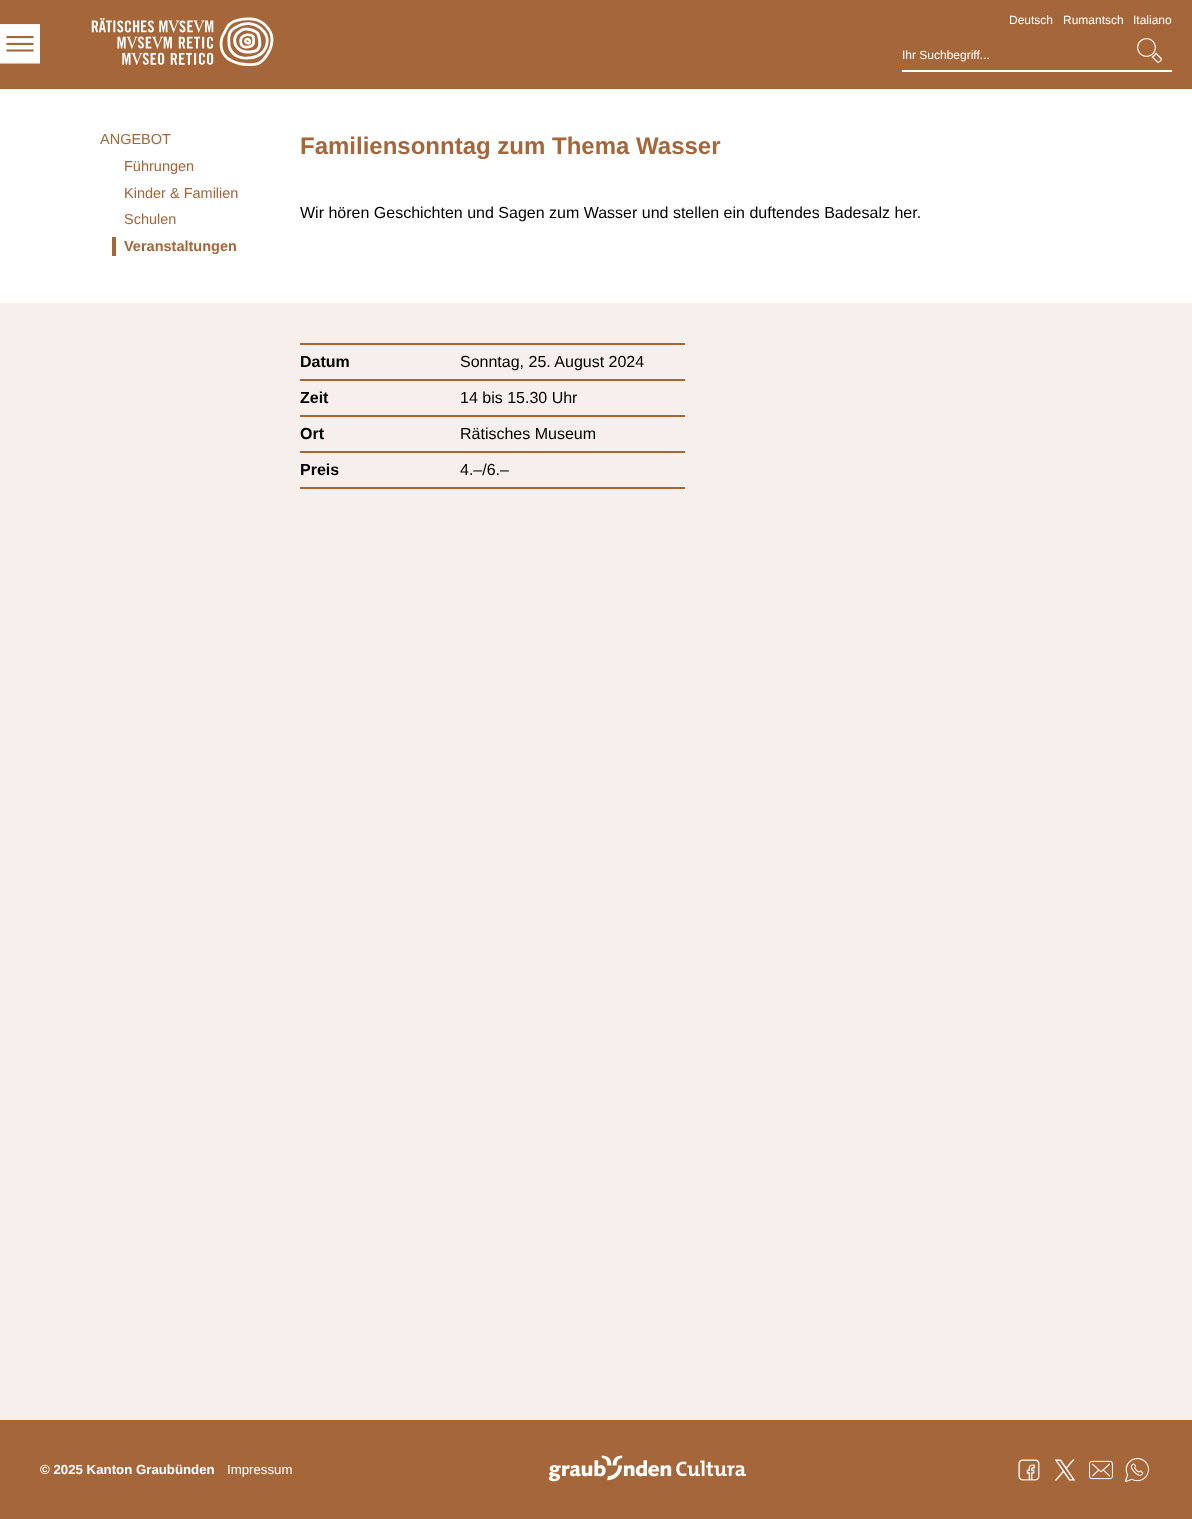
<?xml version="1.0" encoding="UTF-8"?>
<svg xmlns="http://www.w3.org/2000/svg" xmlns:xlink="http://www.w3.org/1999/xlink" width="1192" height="1519">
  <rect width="100%" height="100%" fill="#ffffff" />
  <rect width="1192" height="89" fill="#a5663a" />
  <image x="0" y="24" width="40" height="40" xlink:href="image1.png" />
  <image x="91" y="17" width="183" height="49" xlink:href="image2.png" />
  <rect x="902" y="70" width="270" height="2" fill="#ffffff" />
  <image x="1137" y="38" width="25" height="25" xlink:href="image3.png" />
  <rect x="112" y="237" width="4" height="19" fill="#a5663a" />
  <rect y="303" width="1192" height="1117" fill="#f6efeb" />
  <rect x="300" y="343" width="385" height="2" fill="#a5663a" />
  <rect x="300" y="379" width="385" height="2" fill="#a5663a" />
  <rect x="300" y="415" width="385" height="2" fill="#a5663a" />
  <rect x="300" y="451" width="385" height="2" fill="#a5663a" />
  <rect x="300" y="487" width="385" height="2" fill="#a5663a" />
  <rect y="1420" width="1192" height="99" fill="#a5663a" />
  <image x="548" y="1455" width="199" height="27" xlink:href="image4.png" />
  <image x="1018" y="1459" width="22" height="22" xlink:href="image5.png" />
  <image x="1054" y="1459" width="22" height="22" xlink:href="image6.png" />
  <image x="1089" y="1460" width="24" height="20" xlink:href="image7.png" />
  <image x="1125" y="1458" width="24" height="24" xlink:href="image8.png" />
  <text x="902" y="59" style="font-family: Liberation Sans; font-size: 12px; fill: #ffffff">Ihr Suchbegriff...</text>
  <text x="1009" y="24" style="font-family: Liberation Sans; font-size: 12px; fill: #ffffff">Deutsch</text>
  <text x="1063" y="24" style="font-family: Liberation Sans; font-size: 12px; fill: #ffffff">Rumantsch</text>
  <text x="1133" y="24" style="font-family: Liberation Sans; font-size: 12px; fill: #ffffff">Italiano</text>
  <text x="100" y="144" style="font-family: Liberation Sans; font-size: 14.5px; fill: #a5663a">ANGEBOT</text>
  <text x="124" y="171" style="font-family: Liberation Sans; font-size: 14.5px; fill: #a5663a">Führungen</text>
  <text x="124" y="198" style="font-family: Liberation Sans; font-size: 14.5px; fill: #a5663a">Kinder &amp; Familien</text>
  <text x="124" y="224" style="font-family: Liberation Sans; font-size: 14.5px; fill: #a5663a">Schulen</text>
  <text x="124" y="251" style="font-family: Liberation Sans; font-size: 14.5px; font-weight: bold; fill: #a5663a">Veranstaltungen</text>
  <text x="300" y="154" style="font-family: Liberation Sans; font-size: 24px; font-weight: bold; fill: #a5663a">Familiensonntag zum Thema Wasser</text>
  <text x="300" y="218" style="font-family: Liberation Sans; font-size: 16px; fill: #000000">Wir hören Geschichten und Sagen zum Wasser und stellen ein duftendes Badesalz her.</text>
  <text x="300" y="367" style="font-family: Liberation Sans; font-size: 16px; font-weight: bold; fill: #000000">Datum</text>
  <text x="460" y="367" style="font-family: Liberation Sans; font-size: 16px; fill: #000000">Sonntag, 25. August 2024</text>
  <text x="300" y="403" style="font-family: Liberation Sans; font-size: 16px; font-weight: bold; fill: #000000">Zeit</text>
  <text x="460" y="403" style="font-family: Liberation Sans; font-size: 16px; fill: #000000">14 bis 15.30 Uhr</text>
  <text x="300" y="439" style="font-family: Liberation Sans; font-size: 16px; font-weight: bold; fill: #000000">Ort</text>
  <text x="460" y="439" style="font-family: Liberation Sans; font-size: 16px; fill: #000000">Rätisches Museum</text>
  <text x="300" y="475" style="font-family: Liberation Sans; font-size: 16px; font-weight: bold; fill: #000000">Preis</text>
  <text x="460" y="475" style="font-family: Liberation Sans; font-size: 16px; fill: #000000">4.–/6.–</text>
  <text x="40" y="1474" style="font-family: Liberation Sans; font-size: 13.25px; font-weight: bold; fill: #ffffff">© 2025 Kanton Graubünden</text>
  <text x="227" y="1474" style="font-family: Liberation Sans; font-size: 13.25px; fill: #ffffff">Impressum</text>
</svg>
